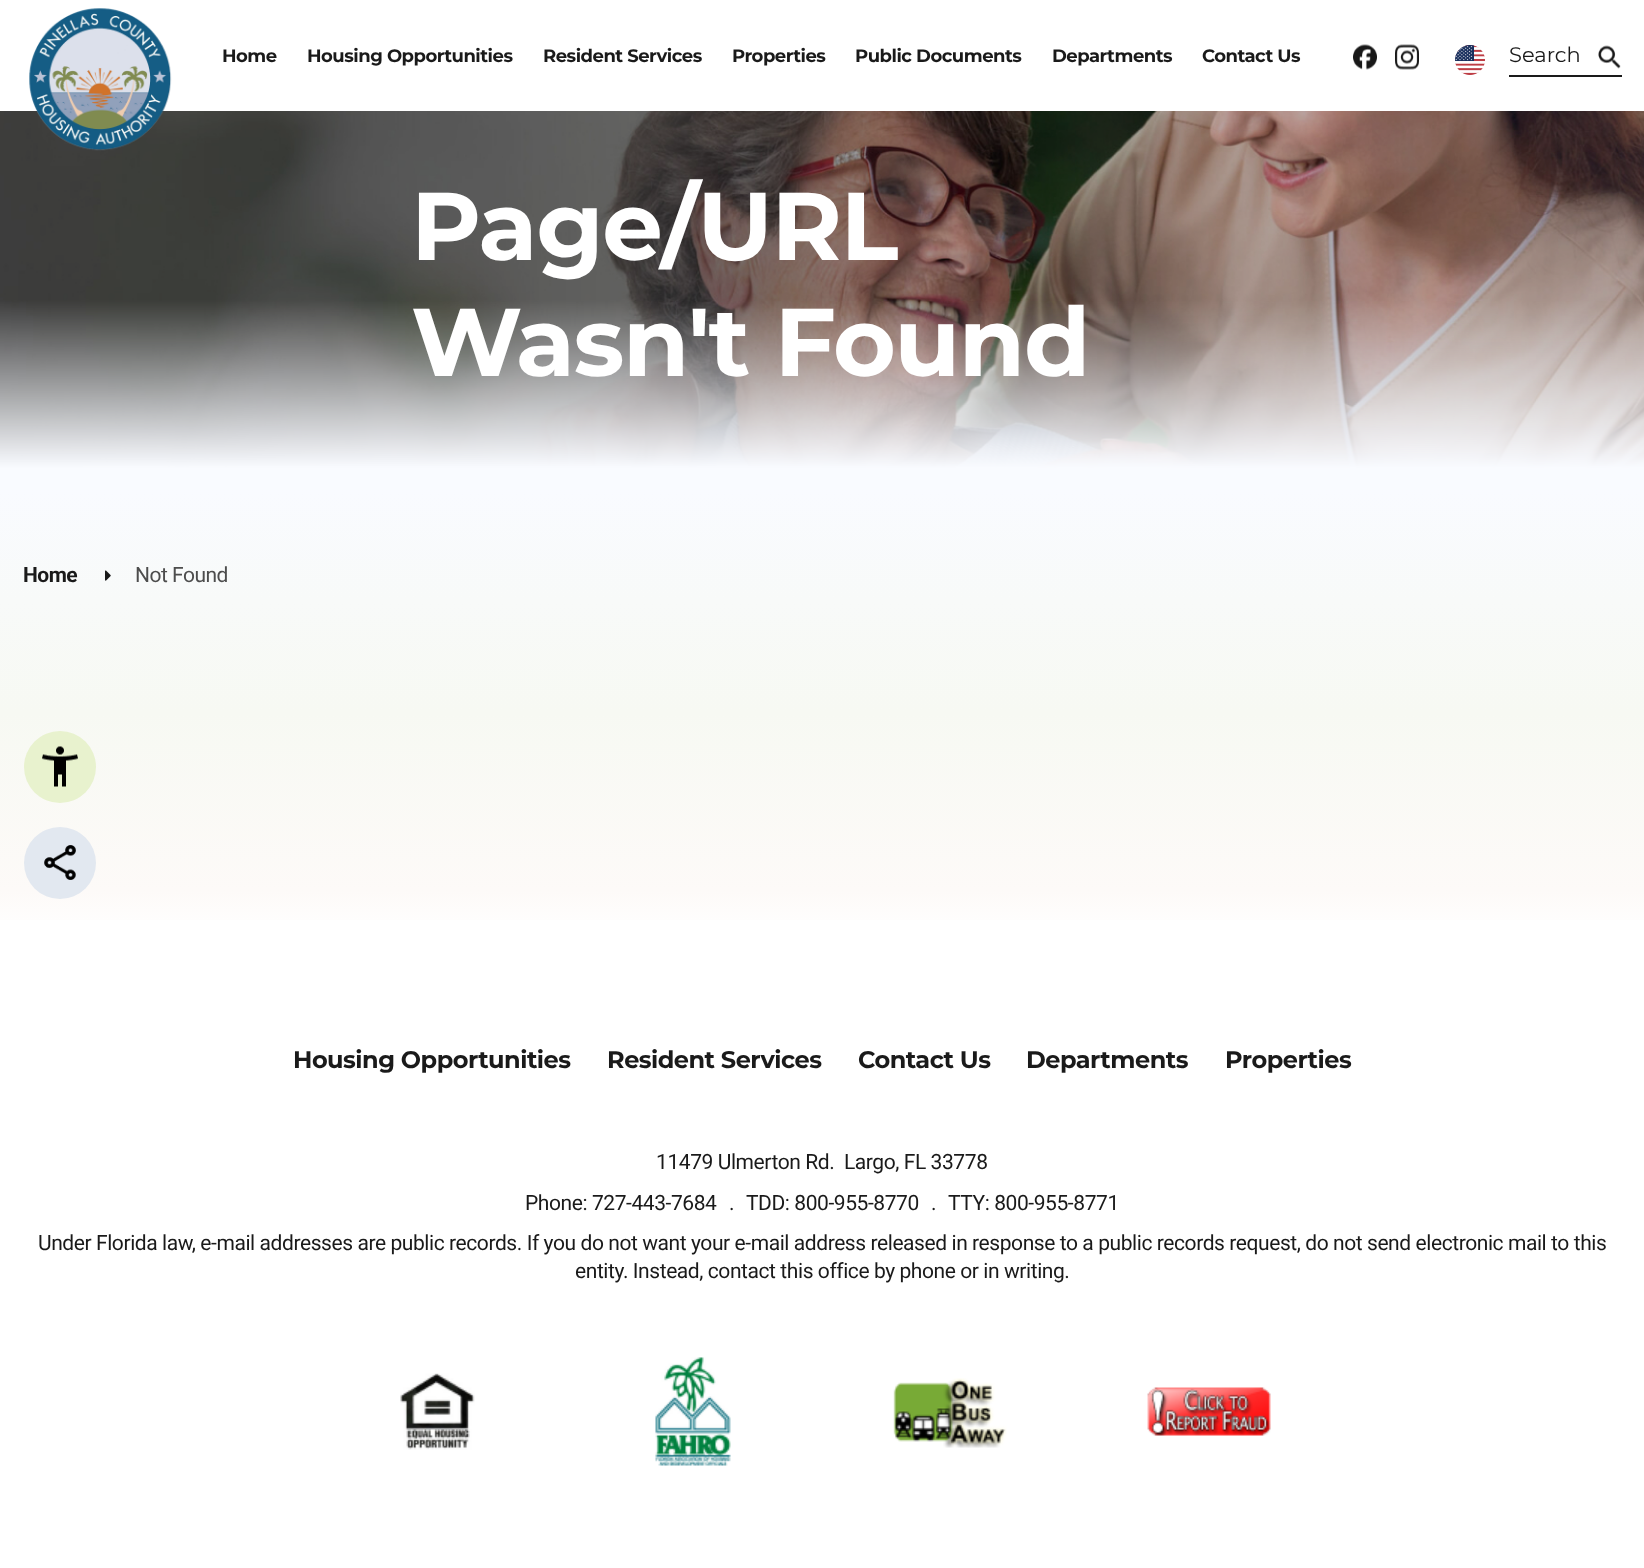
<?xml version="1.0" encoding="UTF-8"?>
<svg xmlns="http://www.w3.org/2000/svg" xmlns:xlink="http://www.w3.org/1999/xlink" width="1644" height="1568">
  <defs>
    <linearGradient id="g1" gradientUnits="userSpaceOnUse" x1="822" y1="489" x2="822" y2="936"><stop offset="0" stop-color="#f9fbff" /><stop offset="0.5" stop-color="#f7f9f3" /><stop offset="0.9" stop-color="#fdfaf8" /><stop offset="1" stop-color="#ffffff" /></linearGradient>
  </defs>
  <rect width="100%" height="100%" fill="#ffffff" />
  <image x="0" y="111" width="1644" height="378" xlink:href="image6.png" />
  <image x="29" y="8" width="143" height="143" xlink:href="image1.png" />
  <image x="1353" y="44" width="24" height="26" xlink:href="image2.png" />
  <image x="1395" y="44" width="24" height="26" xlink:href="image3.png" />
  <image x="1455" y="45" width="30" height="30" xlink:href="image4.png" />
  <rect x="1509" y="75" width="113" height="2" fill="#1a1a1a" />
  <image x="1598" y="45" width="23" height="24" xlink:href="image5.png" />
  <rect y="489" width="1644" height="431" fill="url(#g1)" />
  <image x="105" y="570" width="6" height="11" xlink:href="image7.png" />
  <circle cx="60" cy="767" r="36" fill="#e8f2ce" />
  <image x="42" y="746" width="36" height="41" xlink:href="image8.png" />
  <circle cx="60" cy="863" r="36" fill="#e2e8f0" />
  <image x="44" y="845" width="32" height="35" xlink:href="image9.png" />
  <image x="400" y="1373" width="75" height="77" xlink:href="image10.png" />
  <image x="655" y="1357" width="76" height="109" xlink:href="image11.png" />
  <image x="893" y="1378" width="114" height="70" xlink:href="image12.png" />
  <image x="1147" y="1387" width="124" height="49" xlink:href="image13.png" />
  <text x="222" y="62" style="font-family: Montserrat; font-size: 18px; font-weight: bold; letter-spacing: -0.5px; fill: #1a1a1a">Home</text>
  <text x="307" y="62" style="font-family: Montserrat; font-size: 18px; font-weight: bold; letter-spacing: -0.5px; fill: #1a1a1a">Housing Opportunities</text>
  <text x="543" y="62" style="font-family: Montserrat; font-size: 18px; font-weight: bold; letter-spacing: -0.5px; fill: #1a1a1a">Resident Services</text>
  <text x="732" y="62" style="font-family: Montserrat; font-size: 18px; font-weight: bold; letter-spacing: -0.5px; fill: #1a1a1a">Properties</text>
  <text x="855" y="62" style="font-family: Montserrat; font-size: 18px; font-weight: bold; letter-spacing: -0.5px; fill: #1a1a1a">Public Documents</text>
  <text x="1052" y="62" style="font-family: Montserrat; font-size: 18px; font-weight: bold; letter-spacing: -0.5px; fill: #1a1a1a">Departments</text>
  <text x="1202" y="62" style="font-family: Montserrat; font-size: 18px; font-weight: bold; letter-spacing: -0.5px; fill: #1a1a1a">Contact Us</text>
  <text x="1509" y="62" style="font-family: Montserrat; font-size: 21px; fill: #1a1a1a">Search</text>
  <text x="411" y="260" style="font-family: Montserrat; font-size: 96px; font-weight: bold; letter-spacing: -1.5px; fill: #ffffff">Page/URL</text>
  <text x="411" y="376" style="font-family: Montserrat; font-size: 96px; font-weight: bold; letter-spacing: -1.5px; fill: #ffffff">Wasn't Found</text>
  <text x="23" y="582" style="font-family: Roboto; font-size: 21px; font-weight: bold; letter-spacing: -0.5px; fill: #1a1a1a">Home</text>
  <text x="135" y="582" style="font-family: Roboto; font-size: 21px; letter-spacing: -0.5px; fill: #4d4d4d">Not Found</text>
  <text x="293" y="1068" style="font-family: Montserrat; font-size: 24px; font-weight: bold; letter-spacing: -0.5px; fill: #1a1a1a">Housing Opportunities</text>
  <text x="607" y="1068" style="font-family: Montserrat; font-size: 24px; font-weight: bold; letter-spacing: -0.5px; fill: #1a1a1a">Resident Services</text>
  <text x="858" y="1068" style="font-family: Montserrat; font-size: 24px; font-weight: bold; letter-spacing: -0.5px; fill: #1a1a1a">Contact Us</text>
  <text x="1026" y="1068" style="font-family: Montserrat; font-size: 24px; font-weight: bold; letter-spacing: -0.5px; fill: #1a1a1a">Departments</text>
  <text x="1225" y="1068" style="font-family: Montserrat; font-size: 24px; font-weight: bold; letter-spacing: -0.5px; fill: #1a1a1a">Properties</text>
  <text x="656" y="1169" style="font-family: Roboto; font-size: 21px; letter-spacing: -0.42px; fill: #1a1a1a" xml:space="preserve">11479 Ulmerton Rd.  Largo, FL 33778</text>
  <text x="525" y="1210" style="font-family: Roboto; font-size: 21px; letter-spacing: -0.42px; fill: #1a1a1a">Phone: 727-443-7684</text>
  <text x="729" y="1210" style="font-family: Roboto; font-size: 21px; letter-spacing: -0.5px; fill: #1a1a1a">.</text>
  <text x="746" y="1210" style="font-family: Roboto; font-size: 21px; letter-spacing: -0.42px; fill: #1a1a1a">TDD: 800-955-8770</text>
  <text x="931" y="1210" style="font-family: Roboto; font-size: 21px; letter-spacing: -0.5px; fill: #1a1a1a">.</text>
  <text x="948" y="1210" style="font-family: Roboto; font-size: 21px; letter-spacing: -0.42px; fill: #1a1a1a">TTY: 800-955-8771</text>
  <text x="38" y="1250" style="font-family: Roboto; font-size: 21px; letter-spacing: -0.42px; fill: #1a1a1a">Under Florida law, e-mail addresses are public records. If you do not want your e-mail address released in response to a public records request, do not send electronic mail to this</text>
  <text x="575" y="1278" style="font-family: Roboto; font-size: 21px; letter-spacing: -0.42px; fill: #1a1a1a">entity. Instead, contact this office by phone or in writing.</text>
</svg>
